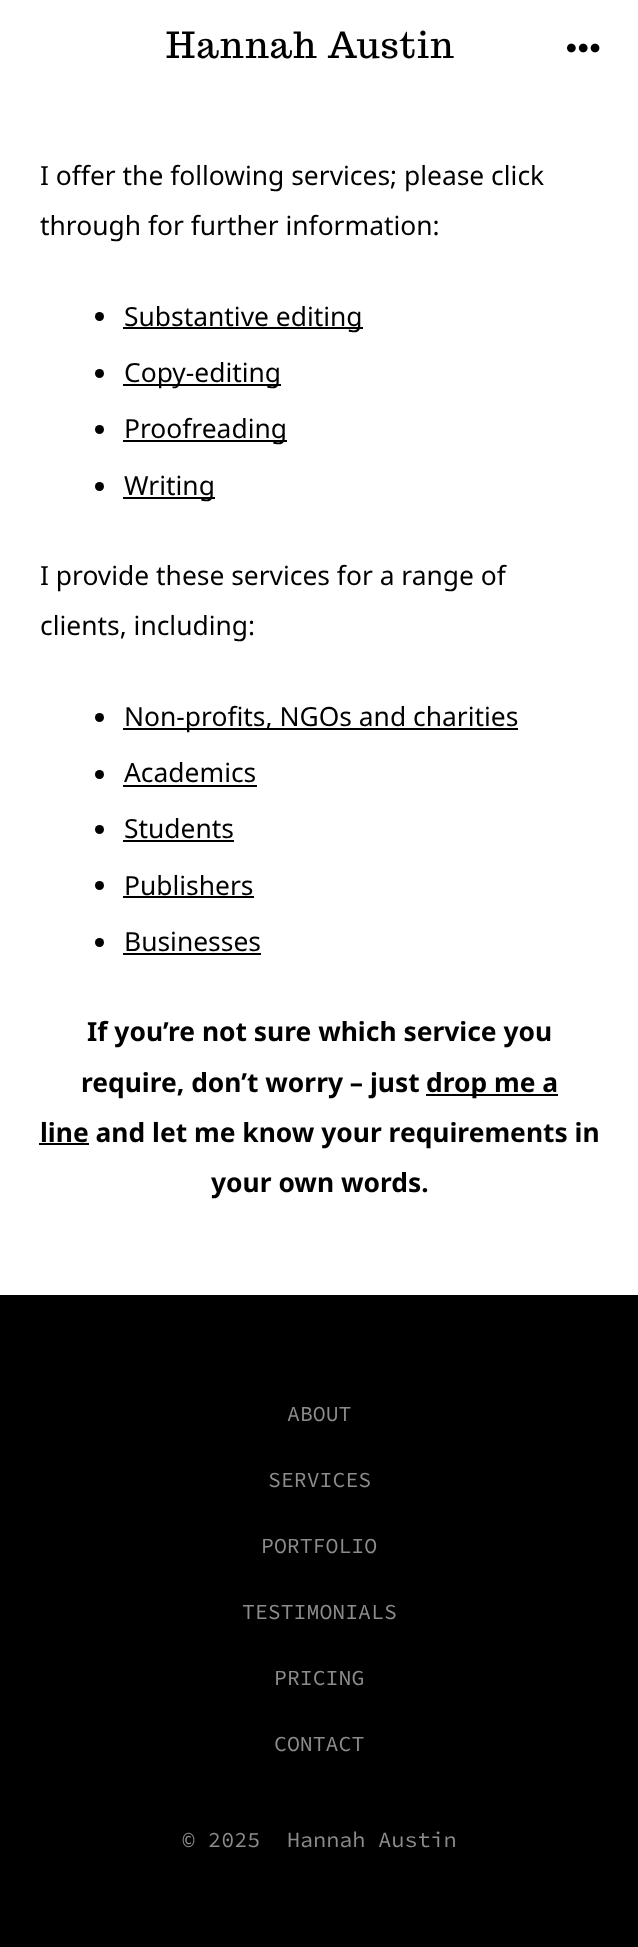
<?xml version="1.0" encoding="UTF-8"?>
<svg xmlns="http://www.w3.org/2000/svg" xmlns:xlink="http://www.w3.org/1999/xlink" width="638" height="1947">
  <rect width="100%" height="100%" fill="#ffffff" />
  <image x="567" y="43" width="33" height="10" xlink:href="image1.png" />
  <circle cx="99.5" cy="316.5" r="4.5" fill="#000000" />
  <rect x="123" y="327" width="240" height="2" fill="#000000" />
  <circle cx="99.5" cy="373.5" r="4.5" fill="#000000" />
  <rect x="123" y="384" width="158" height="2" fill="#000000" />
  <circle cx="99.5" cy="429.5" r="4.5" fill="#000000" />
  <rect x="123" y="440" width="164" height="2" fill="#000000" />
  <circle cx="99.5" cy="486.5" r="4.5" fill="#000000" />
  <rect x="123" y="497" width="92" height="2" fill="#000000" />
  <circle cx="99.5" cy="717.5" r="4.5" fill="#000000" />
  <rect x="123" y="728" width="395" height="2" fill="#000000" />
  <circle cx="99.5" cy="774.5" r="4.5" fill="#000000" />
  <rect x="123" y="785" width="134" height="2" fill="#000000" />
  <circle cx="99.5" cy="829.5" r="4.5" fill="#000000" />
  <rect x="123" y="840" width="111" height="2" fill="#000000" />
  <circle cx="99.5" cy="885.5" r="4.5" fill="#000000" />
  <rect x="123" y="896" width="131" height="2" fill="#000000" />
  <circle cx="99.5" cy="942.5" r="4.5" fill="#000000" />
  <rect x="123" y="953" width="138" height="2" fill="#000000" />
  <rect x="426" y="1094" width="132" height="2" fill="#000000" />
  <rect x="39" y="1143" width="50" height="2" fill="#000000" />
  <rect y="1295" width="638" height="652" fill="#000000" />
  <text x="166" y="58" style="font-family: Trocchi; font-size: 36px; letter-spacing: 1.25px; fill: #000000">Hannah Austin</text>
  <text x="40" y="185" style="font-family: Noto Sans; font-size: 26.4px; fill: #000000">I offer the following services; please click</text>
  <text x="40" y="235" style="font-family: Noto Sans; font-size: 26.4px; fill: #000000">through for further information:</text>
  <text x="124" y="326" style="font-family: Noto Sans; font-size: 26.4px; fill: #000000">Substantive editing</text>
  <text x="124" y="382" style="font-family: Noto Sans; font-size: 26.4px; fill: #000000">Copy-editing</text>
  <text x="124" y="438" style="font-family: Noto Sans; font-size: 26.4px; fill: #000000">Proofreading</text>
  <text x="124" y="495" style="font-family: Noto Sans; font-size: 26.4px; fill: #000000">Writing</text>
  <text x="40" y="585" style="font-family: Noto Sans; font-size: 26.4px; fill: #000000">I provide these services for a range of</text>
  <text x="40" y="635" style="font-family: Noto Sans; font-size: 26.4px; fill: #000000">clients, including:</text>
  <text x="124" y="726" style="font-family: Noto Sans; font-size: 26.4px; fill: #000000">Non-profits, NGOs and charities</text>
  <text x="124" y="782" style="font-family: Noto Sans; font-size: 26.4px; fill: #000000">Academics</text>
  <text x="124" y="838" style="font-family: Noto Sans; font-size: 26.4px; fill: #000000">Students</text>
  <text x="124" y="895" style="font-family: Noto Sans; font-size: 26.4px; fill: #000000">Publishers</text>
  <text x="124" y="951" style="font-family: Noto Sans; font-size: 26.4px; fill: #000000">Businesses</text>
  <text x="87" y="1041" style="font-family: Noto Sans; font-size: 26.4px; font-weight: bold; fill: #000000">If you’re not sure which service you</text>
  <text x="81" y="1092" style="font-family: Noto Sans; font-size: 26.4px; font-weight: bold; fill: #000000">require, don’t worry – just</text>
  <text x="426" y="1092" style="font-family: Noto Sans; font-size: 26.4px; font-weight: bold; fill: #000000">drop me a</text>
  <text x="40" y="1142" style="font-family: Noto Sans; font-size: 26.4px; font-weight: bold; fill: #000000">line and let me know your requirements in</text>
  <text x="211" y="1192" style="font-family: Noto Sans; font-size: 26.4px; font-weight: bold; fill: #000000">your own words.</text>
  <text x="287" y="1421" style="font-family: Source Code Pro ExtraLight; font-size: 21.5px; fill: #8c8c8c">ABOUT</text>
  <text x="268" y="1487" style="font-family: Source Code Pro ExtraLight; font-size: 21.5px; fill: #8c8c8c">SERVICES</text>
  <text x="261" y="1553" style="font-family: Source Code Pro ExtraLight; font-size: 21.5px; fill: #8c8c8c">PORTFOLIO</text>
  <text x="242" y="1619" style="font-family: Source Code Pro ExtraLight; font-size: 21.5px; fill: #8c8c8c">TESTIMONIALS</text>
  <text x="274" y="1685" style="font-family: Source Code Pro ExtraLight; font-size: 21.5px; fill: #8c8c8c">PRICING</text>
  <text x="274" y="1751" style="font-family: Source Code Pro ExtraLight; font-size: 21.5px; fill: #8c8c8c">CONTACT</text>
  <text x="182" y="1847" style="font-family: Source Code Pro ExtraLight; font-size: 21.75px; fill: #8c8c8c">© 2025</text>
  <text x="287" y="1847" style="font-family: Source Code Pro ExtraLight; font-size: 21.75px; fill: #8c8c8c">Hannah Austin</text>
</svg>
